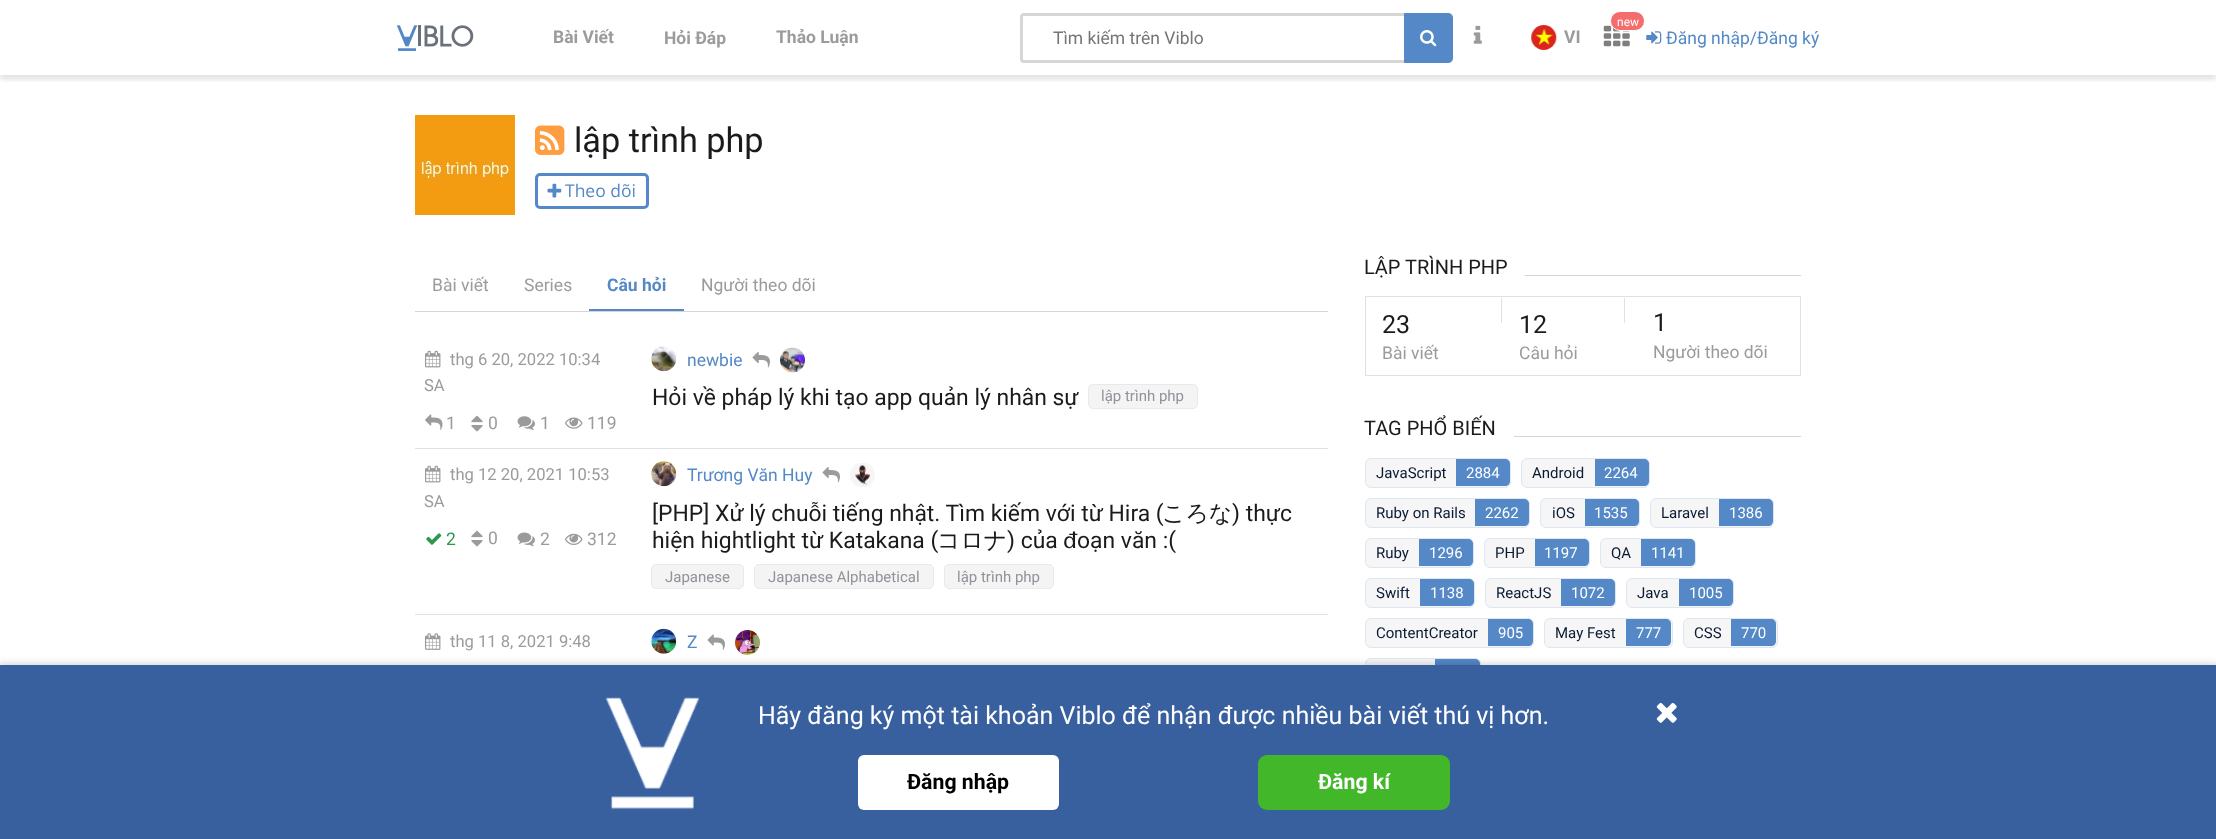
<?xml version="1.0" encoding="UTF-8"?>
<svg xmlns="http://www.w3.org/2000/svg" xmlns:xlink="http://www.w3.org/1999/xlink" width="2216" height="839">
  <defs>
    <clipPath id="clip1"><rect x="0" y="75" width="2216" height="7" /></clipPath>
  </defs>
  <rect width="100%" height="100%" fill="#ffffff" />
  <g clip-path="url(#clip1)">
    <rect y="5" width="2216" height="75" fill="#000000" fill-opacity="0.1" filter="blur(2.5px)" />
  </g>
  <image x="396" y="25" width="78" height="26" xlink:href="image1.png" />
  <rect x="1021.5" y="14.5" width="430" height="47" rx="2.5" fill="none" stroke="#d6d6d7" stroke-width="3" />
  <path d="M 1404.5 13.5 h 43.5 c 2.5 0 4.5 2 4.5 4.5 v 40 c 0 2.5 -2 4.5 -4.5 4.5 h -43.5 z" fill="#5488c7" stroke="#5488c7" />
  <image x="1420" y="30" width="17" height="17" xlink:href="image2.png" />
  <image x="1473" y="25" width="9" height="19" xlink:href="image3.png" />
  <image x="1603" y="25" width="27" height="22" xlink:href="image4.png" />
  <rect x="1610.5" y="11.5" width="34" height="19" rx="9.5" fill="#f56c6c" stroke="#ffffff" />
  <image x="1531" y="25" width="26" height="25" xlink:href="image5.png" />
  <image x="1646" y="31" width="16" height="13" xlink:href="image6.png" />
  <image x="415" y="115" width="100" height="100" xlink:href="image7.png" />
  <image x="535" y="125" width="30" height="30" xlink:href="image8.png" />
  <rect x="536.5" y="174.5" width="111" height="33" rx="3.5" fill="none" stroke="#5488c7" stroke-width="3" />
  <image x="547" y="183" width="15" height="15" xlink:href="image9.png" />
  <rect x="415" y="311" width="913" height="1" fill="#d6d6d7" />
  <rect x="589" y="309" width="95" height="2" fill="#5488c7" />
  <rect x="415" y="448" width="913" height="1" fill="#dbe3e8" />
  <image x="425" y="350" width="16" height="18" xlink:href="image10.png" />
  <image x="425" y="414" width="18" height="16" xlink:href="image11.png" />
  <image x="471" y="415" width="12" height="8" xlink:href="image12.png" />
  <image x="471" y="425" width="12" height="7" xlink:href="image13.png" />
  <image x="517" y="416" width="18" height="14" xlink:href="image14.png" />
  <image x="565" y="417" width="18" height="12" xlink:href="image15.png" />
  <image x="651" y="346" width="25" height="26" xlink:href="image16.png" />
  <image x="752" y="352" width="18" height="16" xlink:href="image17.png" />
  <image x="780" y="347" width="25" height="26" xlink:href="image18.png" />
  <rect x="1088.5" y="384.5" width="109" height="24" rx="4.5" fill="#f4f4f5" stroke="#e9e9eb" />
  <rect x="415" y="614" width="913" height="1" fill="#dbe3e8" />
  <image x="425" y="465" width="16" height="18" xlink:href="image10.png" />
  <image x="426" y="533" width="16" height="12" xlink:href="image19.png" />
  <image x="471" y="530" width="12" height="8" xlink:href="image12.png" />
  <image x="471" y="540" width="12" height="7" xlink:href="image13.png" />
  <image x="517" y="532" width="18" height="15" xlink:href="image20.png" />
  <image x="565" y="533" width="18" height="12" xlink:href="image21.png" />
  <image x="651" y="461" width="26" height="26" xlink:href="image22.png" />
  <image x="822" y="467" width="18" height="16" xlink:href="image17.png" />
  <image x="850" y="463" width="25" height="24" xlink:href="image23.png" />
  <rect x="651.5" y="564.5" width="92" height="24" rx="4.5" fill="#f4f4f5" stroke="#e9e9eb" />
  <rect x="754.5" y="564.5" width="179" height="24" rx="4.5" fill="#f4f4f5" stroke="#e9e9eb" />
  <rect x="944.5" y="564.5" width="109" height="24" rx="4.5" fill="#f4f4f5" stroke="#e9e9eb" />
  <image x="425" y="633" width="16" height="17" xlink:href="image24.png" />
  <image x="651" y="628" width="26" height="26" xlink:href="image25.png" />
  <image x="707" y="634" width="18" height="16" xlink:href="image26.png" />
  <image x="735" y="630" width="25" height="25" xlink:href="image27.png" />
  <rect x="1525" y="275" width="276" height="1" fill="#d6d6d7" />
  <rect x="1365.5" y="296.5" width="435" height="79" fill="none" stroke="#dbe3e8" />
  <rect x="1624" y="298" width="1" height="25" fill="#dbe3e8" />
  <rect x="1501" y="298" width="1" height="25" fill="#dbe3e8" />
  <rect x="1514" y="436" width="287" height="1" fill="#d6d6d7" />
  <rect x="1365.5" y="458.5" width="145" height="29" rx="5.5" fill="#f6f6f7" stroke="#dde7f4" />
  <path d="M 1456 459 h 49 c 3 0 5 2 5 5 v 17 c 0 3 -2 5 -5 5 h -49 z" fill="#5488c7" />
  <rect x="1521.5" y="458.5" width="128" height="29" rx="5.5" fill="#f6f6f7" stroke="#dde7f4" />
  <path d="M 1595 459 h 49 c 3 0 5 2 5 5 v 17 c 0 3 -2 5 -5 5 h -49 z" fill="#5488c7" />
  <rect x="1365.5" y="498.5" width="164" height="29" rx="5.5" fill="#f6f6f7" stroke="#dde7f4" />
  <path d="M 1475 499 h 49 c 3 0 5 2 5 5 v 17 c 0 3 -2 5 -5 5 h -49 z" fill="#5488c7" />
  <rect x="1540.5" y="498.5" width="99" height="29" rx="5.5" fill="#f6f6f7" stroke="#dde7f4" />
  <path d="M 1585 499 h 49 c 3 0 5 2 5 5 v 17 c 0 3 -2 5 -5 5 h -49 z" fill="#5488c7" />
  <rect x="1650.5" y="498.5" width="123" height="29" rx="5.5" fill="#f6f6f7" stroke="#dde7f4" />
  <path d="M 1719 499 h 49 c 3 0 5 2 5 5 v 17 c 0 3 -2 5 -5 5 h -49 z" fill="#5488c7" />
  <rect x="1365.5" y="538.5" width="108" height="29" rx="5.5" fill="#f6f6f7" stroke="#dde7f4" />
  <path d="M 1419 539 h 49 c 3 0 5 2 5 5 v 17 c 0 3 -2 5 -5 5 h -49 z" fill="#5488c7" />
  <rect x="1484.5" y="538.5" width="105" height="29" rx="5.5" fill="#f6f6f7" stroke="#dde7f4" />
  <path d="M 1535 539 h 49 c 3 0 5 2 5 5 v 17 c 0 3 -2 5 -5 5 h -49 z" fill="#5488c7" />
  <rect x="1600.5" y="538.5" width="95" height="29" rx="5.5" fill="#f6f6f7" stroke="#dde7f4" />
  <path d="M 1641 539 h 49 c 3 0 5 2 5 5 v 17 c 0 3 -2 5 -5 5 h -49 z" fill="#5488c7" />
  <rect x="1365.5" y="578.5" width="109" height="29" rx="5.5" fill="#f6f6f7" stroke="#dde7f4" />
  <path d="M 1420 579 h 49 c 3 0 5 2 5 5 v 17 c 0 3 -2 5 -5 5 h -49 z" fill="#5488c7" />
  <rect x="1485.5" y="578.5" width="130" height="29" rx="5.5" fill="#f6f6f7" stroke="#dde7f4" />
  <path d="M 1561 579 h 49 c 3 0 5 2 5 5 v 17 c 0 3 -2 5 -5 5 h -49 z" fill="#5488c7" />
  <rect x="1626.5" y="578.5" width="107" height="29" rx="5.5" fill="#f6f6f7" stroke="#dde7f4" />
  <path d="M 1679 579 h 49 c 3 0 5 2 5 5 v 17 c 0 3 -2 5 -5 5 h -49 z" fill="#5488c7" />
  <rect x="1365.5" y="618.5" width="168" height="29" rx="5.5" fill="#f6f6f7" stroke="#dde7f4" />
  <path d="M 1488 619 h 40 c 3 0 5 2 5 5 v 17 c 0 3 -2 5 -5 5 h -40 z" fill="#5488c7" />
  <rect x="1544.5" y="618.5" width="128" height="29" rx="5.5" fill="#f6f6f7" stroke="#dde7f4" />
  <path d="M 1626 619 h 40 c 3 0 5 2 5 5 v 17 c 0 3 -2 5 -5 5 h -40 z" fill="#5488c7" />
  <rect x="1683.5" y="618.5" width="94" height="29" rx="5.5" fill="#f6f6f7" stroke="#dde7f4" />
  <path d="M 1731 619 h 40 c 3 0 5 2 5 5 v 17 c 0 3 -2 5 -5 5 h -40 z" fill="#5488c7" />
  <rect x="1365.5" y="658.5" width="115" height="29" rx="5.5" fill="#f6f6f7" stroke="#dde7f4" />
  <path d="M 1435 659 h 40 c 3 0 5 2 5 5 v 17 c 0 3 -2 5 -5 5 h -40 z" fill="#5488c7" />
  <rect x="-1" y="663" width="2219" height="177" fill="#000000" fill-opacity="0.15" filter="blur(3px)" />
  <rect y="665" width="2216" height="174" fill="#39609e" />
  <image x="605" y="697" width="95" height="113" xlink:href="image28.png" />
  <rect x="858" y="755" width="201" height="55" rx="6" fill="#ffffff" />
  <rect x="1258" y="755" width="192" height="55" rx="9" fill="#42b72a" />
  <image x="1656" y="702" width="21" height="21" xlink:href="image29.png" />
  <text x="553" y="43" style="font-family: Roboto; font-size: 17.5px; font-weight: bold; fill: #9b9b9b">Bài Viết</text>
  <text x="664" y="44" style="font-family: Roboto; font-size: 17.5px; font-weight: bold; fill: #9b9b9b">Hỏi Đáp</text>
  <text x="776" y="43" style="font-family: Roboto; font-size: 17.5px; font-weight: bold; fill: #9b9b9b">Thảo Luận</text>
  <text x="1053" y="44" style="font-family: Roboto; font-size: 17.5px; fill: #757575">Tìm kiếm trên Viblo</text>
  <text x="1617" y="26" style="font-family: Roboto; font-size: 12px; fill: #ffffff">new</text>
  <text x="1564" y="43" style="font-family: Roboto; font-size: 17.5px; font-weight: bold; fill: #9b9b9b">VI</text>
  <text x="1666" y="44" style="font-family: Roboto; font-size: 17.5px; fill: #5488c7">Đăng nhập/Đăng ký</text>
  <text x="574" y="152" style="font-family: Roboto; font-size: 34.25px; fill: #1b1b1b">lập trình php</text>
  <text x="565" y="197" style="font-family: Open Sans; font-size: 17.5px; fill: #5488c7">Theo dõi</text>
  <text x="432" y="291" style="font-family: Roboto; font-size: 17.5px; fill: #9b9b9b">Bài viết</text>
  <text x="524" y="291" style="font-family: Roboto; font-size: 17.5px; fill: #9b9b9b">Series</text>
  <text x="607" y="291" style="font-family: Roboto; font-size: 17.5px; font-weight: bold; fill: #5488c7">Câu hỏi</text>
  <text x="701" y="291" style="font-family: Roboto; font-size: 17.5px; fill: #9b9b9b">Người theo dõi</text>
  <text x="450" y="365" style="font-family: Roboto; font-size: 16.6px; fill: #9b9b9b">thg 6 20, 2022 10:34</text>
  <text x="424" y="391" style="font-family: Roboto; font-size: 16.6px; fill: #9b9b9b">SA</text>
  <text x="446" y="429" style="font-family: Roboto; font-size: 17.5px; fill: #9b9b9b">1</text>
  <text x="488" y="429" style="font-family: Roboto; font-size: 17.5px; fill: #9b9b9b">0</text>
  <text x="540" y="429" style="font-family: Roboto; font-size: 17.5px; fill: #9b9b9b">1</text>
  <text x="587" y="429" style="font-family: Roboto; font-size: 17.5px; fill: #9b9b9b">119</text>
  <text x="687" y="366" style="font-family: Roboto; font-size: 17.5px; fill: #5488c7">newbie</text>
  <text x="652" y="405" style="font-family: Roboto; font-size: 22.9px; fill: #1b1b1b">Hỏi về pháp lý khi tạo app quản lý nhân sự</text>
  <text x="1101" y="401" style="font-family: Roboto; font-size: 15px; fill: #909399">lập trình php</text>
  <text x="450" y="480" style="font-family: Roboto; font-size: 16.6px; fill: #9b9b9b">thg 12 20, 2021 10:53</text>
  <text x="424" y="507" style="font-family: Roboto; font-size: 16.6px; fill: #9b9b9b">SA</text>
  <text x="446" y="545" style="font-family: Roboto; font-size: 17.5px; fill: #2c984f">2</text>
  <text x="488" y="544" style="font-family: Roboto; font-size: 17.5px; fill: #9b9b9b">0</text>
  <text x="540" y="545" style="font-family: Roboto; font-size: 17.5px; fill: #9b9b9b">2</text>
  <text x="587" y="545" style="font-family: Roboto; font-size: 17.5px; fill: #9b9b9b">312</text>
  <text x="687" y="481" style="font-family: Roboto; font-size: 17.5px; fill: #5488c7">Trương Văn Huy</text>
  <text x="652" y="521" style="font-family: Roboto; font-size: 22.9px; fill: #1b1b1b">[PHP] Xử lý chuỗi tiếng nhật. Tìm kiếm với từ Hira (</text>
  <text x="1162" y="521" style="font-family: WenQuanYi Zen Hei; font-size: 22.9px; font-weight: 500; fill: #1b1b1b">ころな</text>
  <text x="1232" y="521" style="font-family: Roboto; font-size: 22.9px; fill: #1b1b1b">) thực</text>
  <text x="652" y="548" style="font-family: Roboto; font-size: 22.9px; fill: #1b1b1b">hiện hightlight từ Katakana (</text>
  <text x="937" y="548" style="font-family: WenQuanYi Zen Hei; font-size: 22.9px; font-weight: 500; fill: #1b1b1b">コロナ</text>
  <text x="1007" y="548" style="font-family: Roboto; font-size: 22.9px; fill: #1b1b1b">) của</text>
  <text x="1063" y="548" style="font-family: WenQuanYi Zen Hei; font-size: 22.9px; font-weight: 500; fill: #1b1b1b">đ</text>
  <text x="1077" y="548" style="font-family: Roboto; font-size: 22.9px; fill: #1b1b1b">oạn văn :(</text>
  <text x="665" y="582" style="font-family: Roboto; font-size: 15px; fill: #909399">Japanese</text>
  <text x="768" y="582" style="font-family: Roboto; font-size: 15px; fill: #909399">Japanese Alphabetical</text>
  <text x="957" y="582" style="font-family: Roboto; font-size: 15px; fill: #909399">lập trình php</text>
  <text x="450" y="647" style="font-family: Roboto; font-size: 16.6px; fill: #9b9b9b">thg 11 8, 2021 9:48</text>
  <text x="687" y="648" style="font-family: Roboto; font-size: 17.5px; fill: #5488c7">Z</text>
  <text x="1364" y="274" style="font-family: Roboto; font-size: 20px; fill: #1b1b1b">LẬP TRÌNH PHP</text>
  <text x="1382" y="333" style="font-family: Roboto; font-size: 25px; fill: #1b1b1b">23</text>
  <text x="1382" y="359" style="font-family: Roboto; font-size: 17.5px; fill: #9b9b9b">Bài viết</text>
  <text x="1519" y="333" style="font-family: Roboto; font-size: 25px; fill: #1b1b1b">12</text>
  <text x="1519" y="359" style="font-family: Roboto; font-size: 17.5px; fill: #9b9b9b">Câu hỏi</text>
  <text x="1653" y="331" style="font-family: Roboto; font-size: 25px; fill: #1b1b1b">1</text>
  <text x="1653" y="358" style="font-family: Roboto; font-size: 17.5px; fill: #9b9b9b">Người theo dõi</text>
  <text x="1364" y="435" style="font-family: Roboto; font-size: 20px; fill: #1b1b1b">TAG PHỔ BIẾN</text>
  <text x="1376" y="478" style="font-family: Roboto; font-size: 15px; fill: #0b1a33">JavaScript</text>
  <text x="1466" y="478" style="font-family: Roboto; font-size: 15px; fill: #ffffff">2884</text>
  <text x="1532" y="478" style="font-family: Roboto; font-size: 15px; fill: #0b1a33">Android</text>
  <text x="1604" y="478" style="font-family: Roboto; font-size: 15px; fill: #ffffff">2264</text>
  <text x="1376" y="518" style="font-family: Roboto; font-size: 15px; fill: #0b1a33">Ruby on Rails</text>
  <text x="1485" y="518" style="font-family: Roboto; font-size: 15px; fill: #ffffff">2262</text>
  <text x="1552" y="518" style="font-family: Roboto; font-size: 15px; fill: #0b1a33">iOS</text>
  <text x="1594" y="518" style="font-family: Roboto; font-size: 15px; fill: #ffffff">1535</text>
  <text x="1661" y="518" style="font-family: Roboto; font-size: 15px; fill: #0b1a33">Laravel</text>
  <text x="1729" y="518" style="font-family: Roboto; font-size: 15px; fill: #ffffff">1386</text>
  <text x="1376" y="558" style="font-family: Roboto; font-size: 15px; fill: #0b1a33">Ruby</text>
  <text x="1429" y="558" style="font-family: Roboto; font-size: 15px; fill: #ffffff">1296</text>
  <text x="1495" y="558" style="font-family: Roboto; font-size: 15px; fill: #0b1a33">PHP</text>
  <text x="1544" y="558" style="font-family: Roboto; font-size: 15px; fill: #ffffff">1197</text>
  <text x="1611" y="558" style="font-family: Roboto; font-size: 15px; fill: #0b1a33">QA</text>
  <text x="1651" y="558" style="font-family: Roboto; font-size: 15px; fill: #ffffff">1141</text>
  <text x="1376" y="598" style="font-family: Roboto; font-size: 15px; fill: #0b1a33">Swift</text>
  <text x="1430" y="598" style="font-family: Roboto; font-size: 15px; fill: #ffffff">1138</text>
  <text x="1496" y="598" style="font-family: Roboto; font-size: 15px; fill: #0b1a33">ReactJS</text>
  <text x="1571" y="598" style="font-family: Roboto; font-size: 15px; fill: #ffffff">1072</text>
  <text x="1637" y="598" style="font-family: Roboto; font-size: 15px; fill: #0b1a33">Java</text>
  <text x="1689" y="598" style="font-family: Roboto; font-size: 15px; fill: #ffffff">1005</text>
  <text x="1376" y="638" style="font-family: Roboto; font-size: 15px; fill: #0b1a33">ContentCreator</text>
  <text x="1498" y="638" style="font-family: Roboto; font-size: 15px; fill: #ffffff">905</text>
  <text x="1555" y="638" style="font-family: Roboto; font-size: 15px; fill: #0b1a33">May Fest</text>
  <text x="1636" y="638" style="font-family: Roboto; font-size: 15px; fill: #ffffff">777</text>
  <text x="1694" y="638" style="font-family: Roboto; font-size: 15px; fill: #0b1a33">CSS</text>
  <text x="1741" y="638" style="font-family: Roboto; font-size: 15px; fill: #ffffff">770</text>
  <text x="758" y="724" style="font-family: Roboto; font-size: 25px; fill: #ffffff">Hãy đăng ký một tài khoản Viblo để nhận được nhiều bài viết thú vị hơn.</text>
  <text x="907" y="789" style="font-family: Roboto; font-size: 21.25px; font-weight: bold; fill: #000000">Đăng nhập</text>
  <text x="1318" y="789" style="font-family: Roboto; font-size: 21.25px; font-weight: bold; fill: #ffffff">Đăng kí</text>
</svg>
